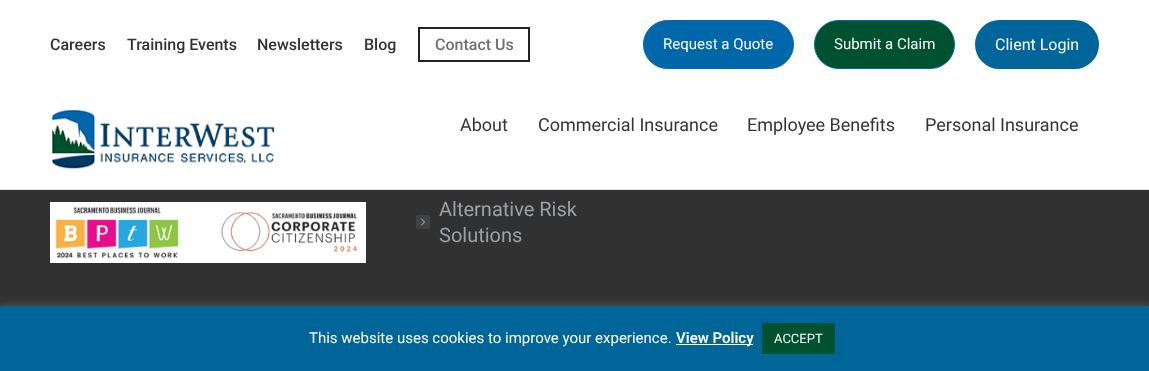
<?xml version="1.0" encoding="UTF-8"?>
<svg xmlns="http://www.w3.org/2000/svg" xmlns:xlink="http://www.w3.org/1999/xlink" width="1149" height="371">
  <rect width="100%" height="100%" fill="#313131" />
  <rect width="1149" height="189" fill="#ffffff" />
  <rect y="189" width="1149" height="1" fill="#e2e3e5" />
  <rect x="419" y="28" width="110" height="33" fill="none" stroke="#222222" stroke-width="2" />
  <rect x="643.5" y="20.5" width="150" height="48" rx="24" fill="#0067ab" stroke="#0067ab" />
  <rect x="814.5" y="20.5" width="140" height="48" rx="24" fill="#00512f" stroke="#0067ab" />
  <rect x="975" y="20" width="124" height="49" rx="24.5" fill="#006699" />
  <image x="51" y="109" width="223" height="61" xlink:href="image1.png" />
  <image x="50" y="202" width="316" height="61" xlink:href="image2.png" />
  <rect x="416" y="215" width="14" height="14" rx="2" fill="#414243" />
  <image x="421" y="218" width="4" height="8" xlink:href="image3.png" />
  <rect y="305" width="1149" height="65" fill="#acabab" fill-opacity="0.3" filter="blur(5px)" />
  <rect y="306" width="1149" height="65" fill="#006699" />
  <rect x="676" y="344" width="77" height="1" fill="#ffffff" />
  <rect x="762" y="323" width="73" height="31" fill="#00512f" />
  <text x="50" y="50" style="font-family: Roboto; font-size: 16px; font-weight: 500; fill: #333333">Careers</text>
  <text x="127" y="50" style="font-family: Roboto; font-size: 16px; font-weight: 500; fill: #333333">Training Events</text>
  <text x="257" y="50" style="font-family: Roboto; font-size: 16px; font-weight: 500; fill: #333333">Newsletters</text>
  <text x="364" y="50" style="font-family: Roboto; font-size: 16px; font-weight: 500; fill: #333333">Blog</text>
  <text x="435" y="50" style="font-family: Roboto; font-size: 16px; font-weight: 500; fill: #707070">Contact Us</text>
  <text x="663" y="49" style="font-family: Roboto; font-size: 15px; fill: #ffffff">Request a Quote</text>
  <text x="834" y="49" style="font-family: Roboto; font-size: 15px; fill: #ffffff">Submit a Claim</text>
  <text x="995" y="50" style="font-family: Roboto; font-size: 16px; fill: #ffffff">Client Login</text>
  <text x="460" y="131" style="font-family: Roboto; font-size: 18px; fill: #333539">About</text>
  <text x="538" y="131" style="font-family: Roboto; font-size: 18px; fill: #333539">Commercial Insurance</text>
  <text x="747" y="131" style="font-family: Roboto; font-size: 18px; fill: #333539">Employee Benefits</text>
  <text x="925" y="131" style="font-family: Roboto; font-size: 18px; fill: #333539">Personal Insurance</text>
  <text x="439" y="216" style="font-family: Roboto; font-size: 20px; fill: #9aa0a7">Alternative Risk</text>
  <text x="439" y="242" style="font-family: Roboto; font-size: 20px; fill: #9aa0a7">Solutions</text>
  <text x="309" y="343" style="font-family: Roboto; font-size: 15px; fill: #ffffff">This website uses cookies to improve your experience.</text>
  <text x="676" y="343" style="font-family: Roboto; font-size: 15px; font-weight: 600; fill: #ffffff">View Policy</text>
  <text x="774" y="343" style="font-family: Roboto; font-size: 13px; fill: #ffffff">ACCEPT</text>
</svg>
